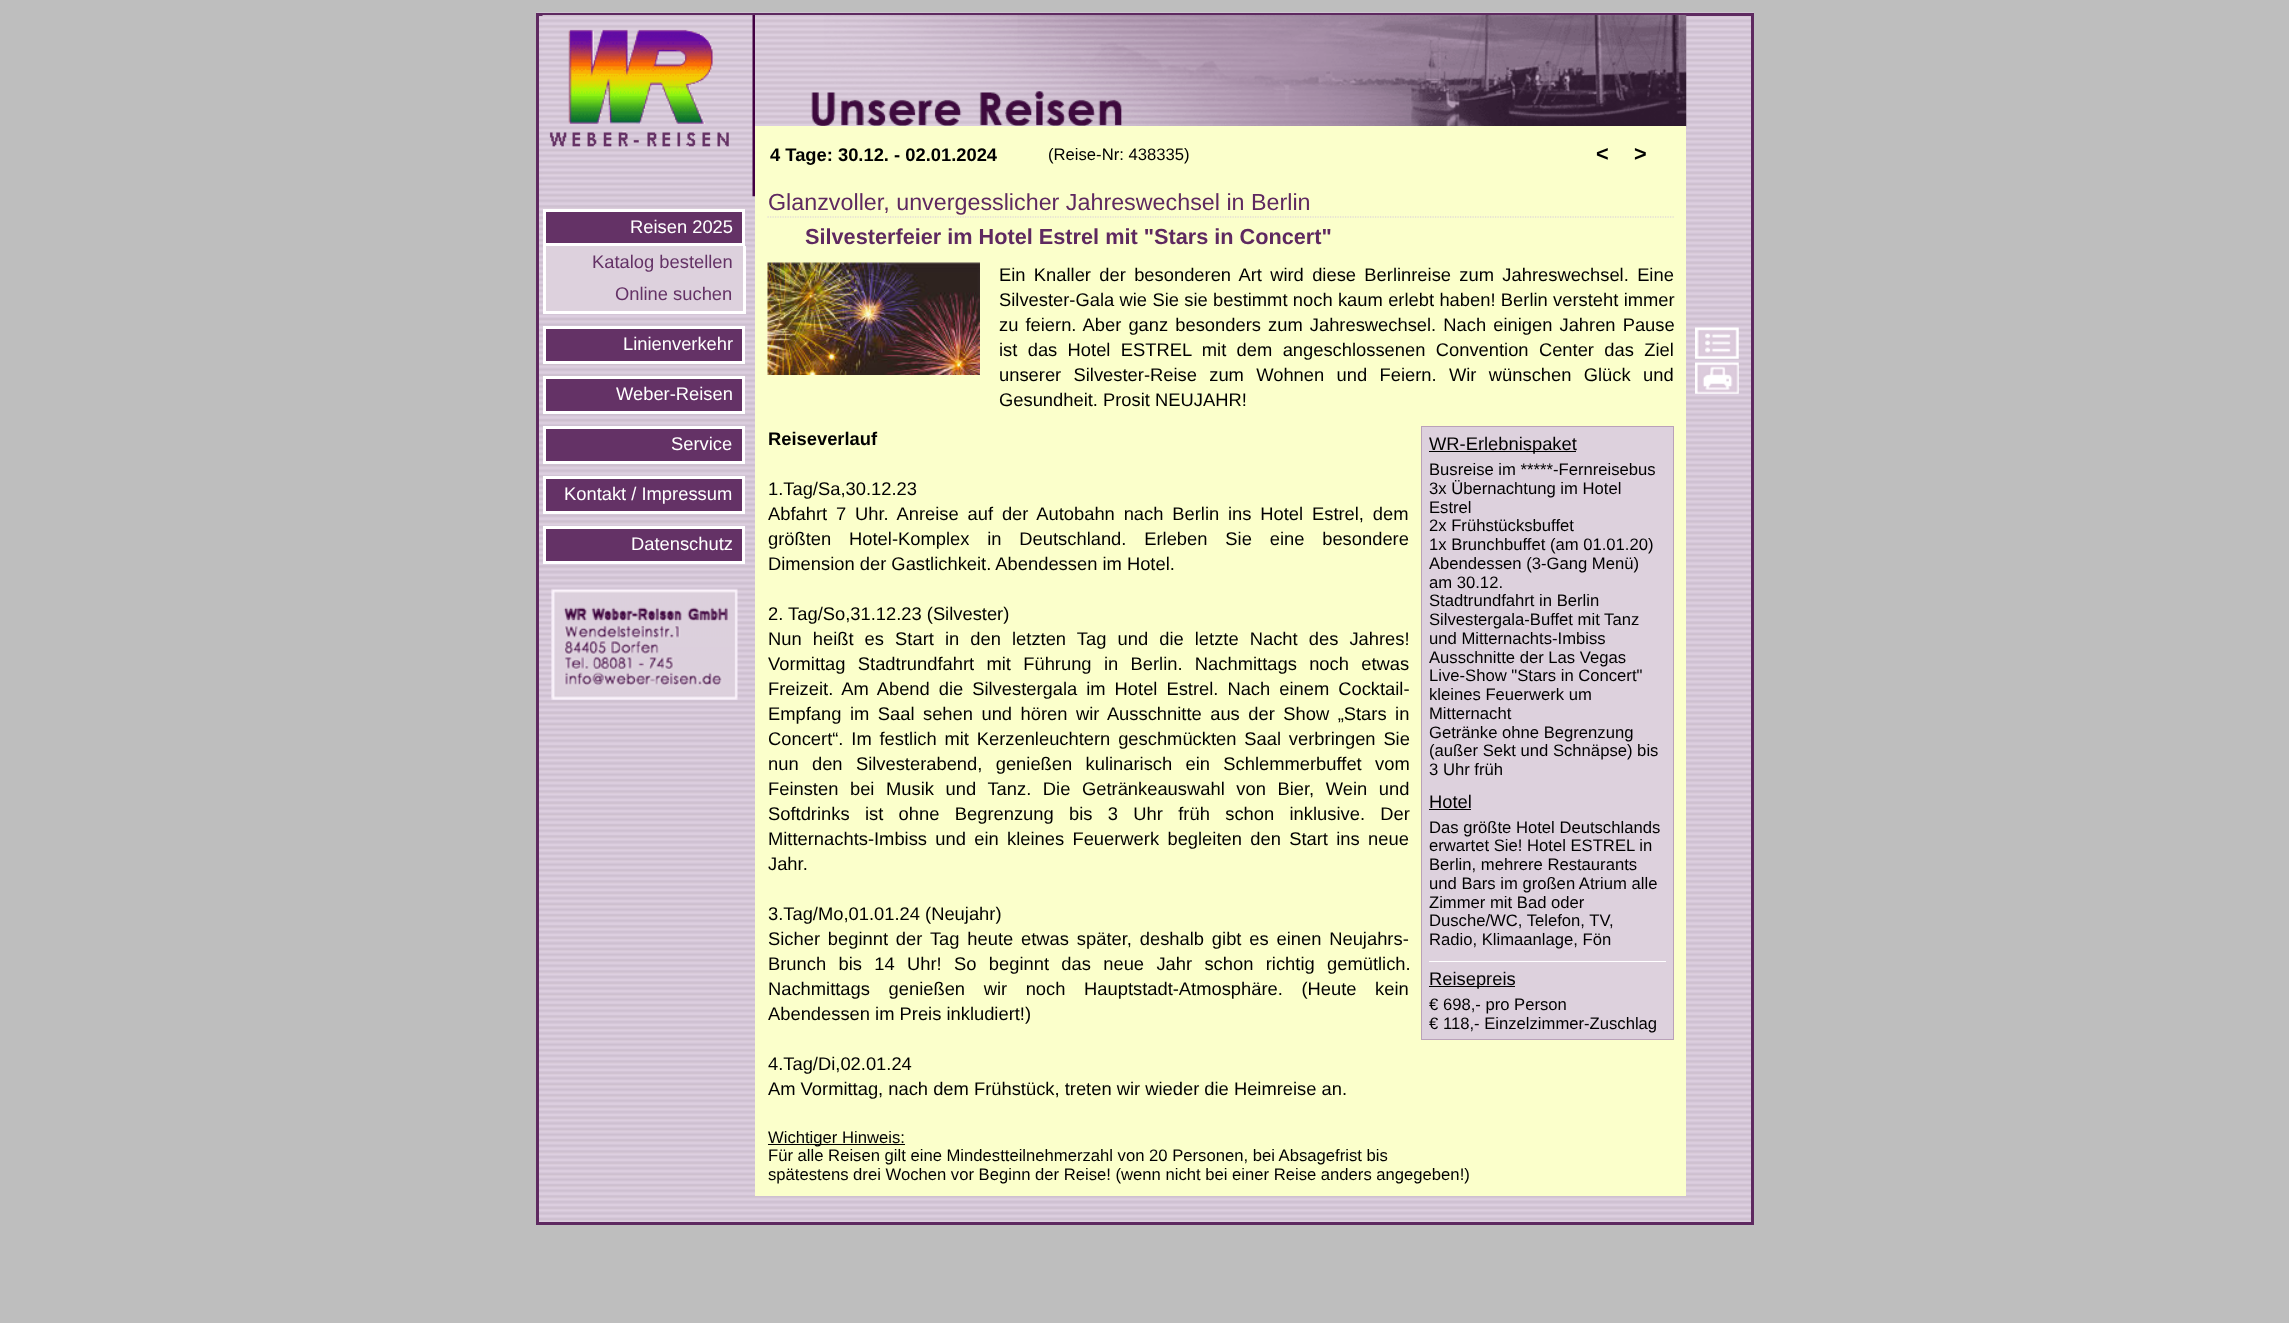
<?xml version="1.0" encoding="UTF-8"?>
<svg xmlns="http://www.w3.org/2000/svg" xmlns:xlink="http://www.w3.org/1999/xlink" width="2289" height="1323">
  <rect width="100%" height="100%" fill="#bebebe" />
  <image x="536" y="12" width="1218" height="1210" xlink:href="image1.png" />
  <rect x="537.5" y="14.5" width="1215" height="1209" fill="none" stroke="#5e2960" stroke-width="3" />
  <image x="542" y="15" width="213" height="182" xlink:href="image2.png" />
  <image x="549" y="29" width="180" height="118" xlink:href="image3.png" />
  <rect x="544.5" y="210.5" width="199" height="34" fill="#643266" stroke="#ffffff" stroke-width="3" />
  <rect x="546" y="246" width="197" height="65" fill="#ddd1dd" />
  <rect x="743" y="246" width="3" height="68" fill="#ffffff" />
  <rect x="543" y="246" width="3" height="33" fill="#ffffff" />
  <rect x="543" y="311" width="202" height="3" fill="#ffffff" />
  <rect x="543" y="279" width="3" height="35" fill="#ffffff" />
  <rect x="544.5" y="327.5" width="199" height="35" fill="#643266" stroke="#ffffff" stroke-width="3" />
  <rect x="544.5" y="377.5" width="199" height="35" fill="#643266" stroke="#ffffff" stroke-width="3" />
  <rect x="544.5" y="427.5" width="199" height="35" fill="#643266" stroke="#ffffff" stroke-width="3" />
  <rect x="544.5" y="477.5" width="199" height="35" fill="#643266" stroke="#ffffff" stroke-width="3" />
  <rect x="544.5" y="527.5" width="199" height="35" fill="#643266" stroke="#ffffff" stroke-width="3" />
  <image x="551" y="588" width="187" height="112" xlink:href="image4.png" />
  <image x="755" y="15" width="932" height="112" xlink:href="image5.png" />
  <rect x="755" y="126" width="931" height="1070" fill="#fbffcb" />
  <path d="M 767.5 217 h 906.5" fill="none" stroke="#d8ccda" stroke-width="1.2" stroke-dasharray="1.25 1.25" />
  <image x="767" y="262" width="213" height="113" xlink:href="image6.png" />
  <rect x="1421.5" y="426.5" width="252" height="613" fill="#ddd1dd" stroke="#b9a1b9" />
  <rect x="1429" y="451" width="147" height="1" fill="#000000" />
  <rect x="1429" y="809" width="42" height="1" fill="#000000" />
  <rect x="1429" y="961" width="237" height="1" fill="#ffffff" />
  <rect x="1429" y="986" width="86" height="1" fill="#000000" />
  <rect x="768" y="1144" width="137" height="1" fill="#000000" />
  <image x="1695" y="327" width="44" height="32" xlink:href="image7.png" />
  <image x="1695" y="362" width="44" height="32" xlink:href="image8.png" />
  <text x="630" y="233" style="font-family: Liberation Sans; font-size: 18.35px; fill: #ffffff">Reisen 2025</text>
  <text x="592" y="268" style="font-family: Liberation Sans; font-size: 18.35px; fill: #643266">Katalog bestellen</text>
  <text x="615" y="300" style="font-family: Liberation Sans; font-size: 18.35px; fill: #643266">Online suchen</text>
  <text x="623" y="350" style="font-family: Liberation Sans; font-size: 18.35px; fill: #ffffff">Linienverkehr</text>
  <text x="616" y="400" style="font-family: Liberation Sans; font-size: 18.35px; fill: #ffffff">Weber-Reisen</text>
  <text x="671" y="450" style="font-family: Liberation Sans; font-size: 18.35px; fill: #ffffff">Service</text>
  <text x="564" y="500" style="font-family: Liberation Sans; font-size: 18.35px; fill: #ffffff">Kontakt / Impressum</text>
  <text x="631" y="550" style="font-family: Liberation Sans; font-size: 18.35px; fill: #ffffff">Datenschutz</text>
  <text x="770" y="161" style="font-family: Liberation Sans; font-size: 18.35px; font-weight: bold; fill: #000000">4 Tage: 30.12. - 02.01.2024</text>
  <text x="1048" y="160" style="font-family: Liberation Sans; font-size: 16.65px; fill: #000000">(Reise-Nr: 438335)</text>
  <text x="1596" y="161" style="font-family: Liberation Sans; font-size: 21.7px; font-weight: bold; fill: #000000">&lt;</text>
  <text x="1634" y="161" style="font-family: Liberation Sans; font-size: 21.7px; font-weight: bold; fill: #000000">&gt;</text>
  <text x="768" y="210" style="font-family: Liberation Sans; font-size: 23.3px; fill: #5e2960">Glanzvoller, unvergesslicher Jahreswechsel in Berlin</text>
  <text x="805" y="244" style="font-family: Liberation Sans; font-size: 21.7px; font-weight: bold; fill: #5e2960">Silvesterfeier im Hotel Estrel mit "Stars in Concert"</text>
  <text x="999" y="281" word-spacing="3.25" style="font-family: Liberation Sans; font-size: 18.35px; fill: #000000">Ein Knaller der besonderen Art wird diese Berlinreise zum Jahreswechsel. Eine</text>
  <text x="999" y="306" word-spacing="0.25" style="font-family: Liberation Sans; font-size: 18.35px; fill: #000000">Silvester-Gala wie Sie sie bestimmt noch kaum erlebt haben! Berlin versteht immer</text>
  <text x="999" y="331" word-spacing="2" style="font-family: Liberation Sans; font-size: 18.35px; fill: #000000">zu feiern. Aber ganz besonders zum Jahreswechsel. Nach einigen Jahren Pause</text>
  <text x="999" y="356" word-spacing="5.25" style="font-family: Liberation Sans; font-size: 18.35px; fill: #000000">ist das Hotel ESTREL mit dem angeschlossenen Convention Center das Ziel</text>
  <text x="999" y="381" word-spacing="7.25" style="font-family: Liberation Sans; font-size: 18.35px; fill: #000000">unserer Silvester-Reise zum Wohnen und Feiern. Wir wünschen Glück und</text>
  <text x="999" y="406" style="font-family: Liberation Sans; font-size: 18.35px; fill: #000000">Gesundheit. Prosit NEUJAHR!</text>
  <text x="768" y="445" style="font-family: Liberation Sans; font-size: 18.35px; font-weight: bold; fill: #000000">Reiseverlauf</text>
  <text x="768" y="495" style="font-family: Liberation Sans; font-size: 18.35px; fill: #000000">1.Tag/Sa,30.12.23</text>
  <text x="768" y="520" word-spacing="3.75" style="font-family: Liberation Sans; font-size: 18.35px; fill: #000000">Abfahrt 7 Uhr. Anreise auf der Autobahn nach Berlin ins Hotel Estrel, dem</text>
  <text x="768" y="545" word-spacing="12.75" style="font-family: Liberation Sans; font-size: 18.35px; fill: #000000">größten Hotel-Komplex in Deutschland. Erleben Sie eine besondere</text>
  <text x="768" y="570" style="font-family: Liberation Sans; font-size: 18.35px; fill: #000000">Dimension der Gastlichkeit. Abendessen im Hotel.</text>
  <text x="768" y="620" style="font-family: Liberation Sans; font-size: 18.35px; fill: #000000">2. Tag/So,31.12.23 (Silvester)</text>
  <text x="768" y="645" word-spacing="6" style="font-family: Liberation Sans; font-size: 18.35px; fill: #000000">Nun heißt es Start in den letzten Tag und die letzte Nacht des Jahres!</text>
  <text x="768" y="670" word-spacing="7.25" style="font-family: Liberation Sans; font-size: 18.35px; fill: #000000">Vormittag Stadtrundfahrt mit Führung in Berlin. Nachmittags noch etwas</text>
  <text x="768" y="695" word-spacing="3.9" style="font-family: Liberation Sans; font-size: 18.35px; fill: #000000">Freizeit. Am Abend die Silvestergala im Hotel Estrel. Nach einem Cocktail-</text>
  <text x="768" y="720" word-spacing="3.4" style="font-family: Liberation Sans; font-size: 18.35px; fill: #000000">Empfang im Saal sehen und hören wir Ausschnitte aus der Show „Stars in</text>
  <text x="768" y="745" word-spacing="2.75" style="font-family: Liberation Sans; font-size: 18.35px; fill: #000000">Concert“. Im festlich mit Kerzenleuchtern geschmückten Saal verbringen Sie</text>
  <text x="768" y="770" word-spacing="8.25" style="font-family: Liberation Sans; font-size: 18.35px; fill: #000000">nun den Silvesterabend, genießen kulinarisch ein Schlemmerbuffet vom</text>
  <text x="768" y="795" word-spacing="6.5" style="font-family: Liberation Sans; font-size: 18.35px; fill: #000000">Feinsten bei Musik und Tanz. Die Getränkeauswahl von Bier, Wein und</text>
  <text x="768" y="820" word-spacing="10.25" style="font-family: Liberation Sans; font-size: 18.35px; fill: #000000">Softdrinks ist ohne Begrenzung bis 3 Uhr früh schon inklusive. Der</text>
  <text x="768" y="845" word-spacing="3.25" style="font-family: Liberation Sans; font-size: 18.35px; fill: #000000">Mitternachts-Imbiss und ein</text>
  <text x="1007" y="845" word-spacing="3.25" style="font-family: Liberation Sans; font-size: 18.35px; fill: #000000">kleines Feuerwerk begleiten den Start ins neue</text>
  <text x="768" y="870" style="font-family: Liberation Sans; font-size: 18.35px; fill: #000000">Jahr.</text>
  <text x="768" y="920" style="font-family: Liberation Sans; font-size: 18.35px; fill: #000000">3.Tag/Mo,01.01.24 (Neujahr)</text>
  <text x="768" y="945" word-spacing="2.75" style="font-family: Liberation Sans; font-size: 18.35px; fill: #000000">Sicher beginnt der Tag heute etwas später, deshalb gibt es einen Neujahrs-</text>
  <text x="768" y="970" word-spacing="7.25" style="font-family: Liberation Sans; font-size: 18.35px; fill: #000000">Brunch bis 14 Uhr! So beginnt das neue Jahr schon richtig gemütlich.</text>
  <text x="768" y="995" word-spacing="13.5" style="font-family: Liberation Sans; font-size: 18.35px; fill: #000000">Nachmittags genießen wir noch Hauptstadt-Atmosphäre. (Heute kein</text>
  <text x="768" y="1020" style="font-family: Liberation Sans; font-size: 18.35px; fill: #000000">Abendessen im Preis inkludiert!)</text>
  <text x="768" y="1070" style="font-family: Liberation Sans; font-size: 18.35px; fill: #000000">4.Tag/Di,02.01.24</text>
  <text x="768" y="1095" style="font-family: Liberation Sans; font-size: 18.35px; fill: #000000">Am Vormittag, nach dem Frühstück, treten wir wieder die Heimreise an.</text>
  <text x="1429" y="450" style="font-family: Liberation Sans; font-size: 18.35px; fill: #000000">WR-Erlebnispaket</text>
  <text x="1429" y="475" style="font-family: Liberation Sans; font-size: 16.65px; fill: #000000">Busreise im *****-Fernreisebus</text>
  <text x="1429" y="494" style="font-family: Liberation Sans; font-size: 16.65px; fill: #000000">3x Übernachtung im Hotel</text>
  <text x="1429" y="513" style="font-family: Liberation Sans; font-size: 16.65px; fill: #000000">Estrel</text>
  <text x="1429" y="531" style="font-family: Liberation Sans; font-size: 16.65px; fill: #000000">2x Frühstücksbuffet</text>
  <text x="1429" y="550" style="font-family: Liberation Sans; font-size: 16.65px; fill: #000000">1x Brunchbuffet (am 01.01.20)</text>
  <text x="1429" y="569" style="font-family: Liberation Sans; font-size: 16.65px; fill: #000000">Abendessen (3-Gang Menü)</text>
  <text x="1429" y="588" style="font-family: Liberation Sans; font-size: 16.65px; fill: #000000">am 30.12.</text>
  <text x="1429" y="606" style="font-family: Liberation Sans; font-size: 16.65px; fill: #000000">Stadtrundfahrt in Berlin</text>
  <text x="1429" y="625" style="font-family: Liberation Sans; font-size: 16.65px; fill: #000000">Silvestergala-Buffet mit Tanz</text>
  <text x="1429" y="644" style="font-family: Liberation Sans; font-size: 16.65px; fill: #000000">und Mitternachts-Imbiss</text>
  <text x="1429" y="663" style="font-family: Liberation Sans; font-size: 16.65px; fill: #000000">Ausschnitte der Las Vegas</text>
  <text x="1429" y="681" style="font-family: Liberation Sans; font-size: 16.65px; fill: #000000">Live-Show "Stars in Concert"</text>
  <text x="1429" y="700" style="font-family: Liberation Sans; font-size: 16.65px; fill: #000000">kleines Feuerwerk um</text>
  <text x="1429" y="719" style="font-family: Liberation Sans; font-size: 16.65px; fill: #000000">Mitternacht</text>
  <text x="1429" y="738" style="font-family: Liberation Sans; font-size: 16.65px; fill: #000000">Getränke ohne Begrenzung</text>
  <text x="1429" y="756" style="font-family: Liberation Sans; font-size: 16.65px; fill: #000000">(außer Sekt und Schnäpse) bis</text>
  <text x="1429" y="775" style="font-family: Liberation Sans; font-size: 16.65px; fill: #000000">3 Uhr früh</text>
  <text x="1429" y="808" style="font-family: Liberation Sans; font-size: 18.35px; fill: #000000">Hotel</text>
  <text x="1429" y="833" style="font-family: Liberation Sans; font-size: 16.65px; fill: #000000">Das größte Hotel Deutschlands</text>
  <text x="1429" y="851" style="font-family: Liberation Sans; font-size: 16.65px; fill: #000000">erwartet Sie! Hotel ESTREL in</text>
  <text x="1429" y="870" style="font-family: Liberation Sans; font-size: 16.65px; fill: #000000">Berlin, mehrere Restaurants</text>
  <text x="1429" y="889" style="font-family: Liberation Sans; font-size: 16.65px; fill: #000000">und Bars im großen Atrium alle</text>
  <text x="1429" y="908" style="font-family: Liberation Sans; font-size: 16.65px; fill: #000000">Zimmer mit Bad oder</text>
  <text x="1429" y="926" style="font-family: Liberation Sans; font-size: 16.65px; fill: #000000">Dusche/WC, Telefon, TV,</text>
  <text x="1429" y="945" style="font-family: Liberation Sans; font-size: 16.65px; fill: #000000">Radio, Klimaanlage, Fön</text>
  <text x="1429" y="985" style="font-family: Liberation Sans; font-size: 18.35px; fill: #000000">Reisepreis</text>
  <text x="1429" y="1010" style="font-family: Liberation Sans; font-size: 16.65px; fill: #000000">€ 698,- pro Person</text>
  <text x="1429" y="1029" style="font-family: Liberation Sans; font-size: 16.65px; fill: #000000">€ 118,- Einzelzimmer-Zuschlag</text>
  <text x="768" y="1143" style="font-family: Liberation Sans; font-size: 16.65px; fill: #000000">Wichtiger Hinweis:</text>
  <text x="768" y="1161" style="font-family: Liberation Sans; font-size: 16.65px; fill: #000000">Für alle Reisen gilt eine Mindestteilnehmerzahl von 20 Personen, bei Absagefrist bis</text>
  <text x="768" y="1180" style="font-family: Liberation Sans; font-size: 16.65px; fill: #000000">spätestens drei Wochen vor Beginn der Reise! (wenn nicht bei einer Reise anders angegeben!)</text>
</svg>
